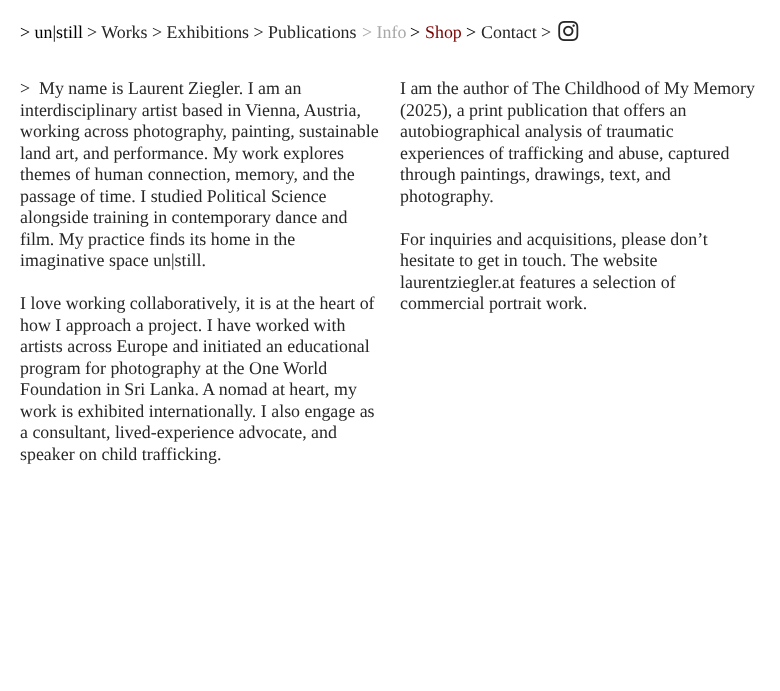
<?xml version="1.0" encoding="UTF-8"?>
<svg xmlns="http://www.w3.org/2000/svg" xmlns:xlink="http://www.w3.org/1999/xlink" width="780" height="691">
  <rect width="100%" height="100%" fill="#ffffff" />
  <image x="558" y="21" width="21" height="20" xlink:href="image1.png" />
  <text x="20" y="38" style="font-family: Liberation Serif; font-size: 17.9px; fill: #000000">&gt; un|still</text>
  <text x="87" y="38" style="font-family: Liberation Serif; font-size: 17.9px; fill: #262626">&gt; Works &gt; Exhibitions &gt; Publications</text>
  <text x="362" y="38" style="font-family: Liberation Serif; font-size: 17.9px; fill: #a8a8a8">&gt; Info</text>
  <text x="410" y="38" style="font-family: Liberation Serif; font-size: 17.9px; fill: #000000">&gt;</text>
  <text x="425" y="38" style="font-family: Liberation Serif; font-size: 17.9px; fill: #7a0000">Shop</text>
  <text x="466" y="38" style="font-family: Liberation Serif; font-size: 17.9px; fill: #000000">&gt;</text>
  <text x="481" y="38" style="font-family: Liberation Serif; font-size: 17.9px; fill: #262626">Contact &gt;</text>
  <text x="20" y="94" style="font-family: Liberation Serif; font-size: 17.9px; fill: #262626" xml:space="preserve">&gt;  My name is Laurent Ziegler. I am an</text>
  <text x="20" y="116" style="font-family: Liberation Serif; font-size: 17.9px; fill: #262626">interdisciplinary artist based in Vienna, Austria,</text>
  <text x="20" y="137" style="font-family: Liberation Serif; font-size: 17.9px; fill: #262626">working across photography, painting, sustainable</text>
  <text x="20" y="159" style="font-family: Liberation Serif; font-size: 17.9px; fill: #262626">land art, and performance. My work explores</text>
  <text x="20" y="180" style="font-family: Liberation Serif; font-size: 17.9px; fill: #262626">themes of human connection, memory, and the</text>
  <text x="20" y="202" style="font-family: Liberation Serif; font-size: 17.9px; fill: #262626">passage of time. I studied Political Science</text>
  <text x="20" y="223" style="font-family: Liberation Serif; font-size: 17.9px; fill: #262626">alongside training in contemporary dance and</text>
  <text x="20" y="245" style="font-family: Liberation Serif; font-size: 17.9px; fill: #262626">film. My practice finds its home in the</text>
  <text x="20" y="266" style="font-family: Liberation Serif; font-size: 17.9px; fill: #262626">imaginative space un|still.</text>
  <text x="20" y="309" style="font-family: Liberation Serif; font-size: 17.9px; fill: #262626">I love working collaboratively, it is at the heart of</text>
  <text x="20" y="331" style="font-family: Liberation Serif; font-size: 17.9px; fill: #262626">how I approach a project. I have worked with</text>
  <text x="20" y="352" style="font-family: Liberation Serif; font-size: 17.9px; fill: #262626">artists across Europe and initiated an educational</text>
  <text x="20" y="374" style="font-family: Liberation Serif; font-size: 17.9px; fill: #262626">program for photography at the One World</text>
  <text x="20" y="395" style="font-family: Liberation Serif; font-size: 17.9px; fill: #262626">Foundation in Sri Lanka. A nomad at heart, my</text>
  <text x="20" y="417" style="font-family: Liberation Serif; font-size: 17.9px; fill: #262626">work is exhibited internationally. I also engage as</text>
  <text x="20" y="438" style="font-family: Liberation Serif; font-size: 17.9px; fill: #262626">a consultant, lived-experience advocate, and</text>
  <text x="20" y="460" style="font-family: Liberation Serif; font-size: 17.9px; fill: #262626">speaker on child trafficking.</text>
  <text x="400" y="94" style="font-family: Liberation Serif; font-size: 17.9px; fill: #262626">I am the author of The Childhood of My Memory</text>
  <text x="400" y="116" style="font-family: Liberation Serif; font-size: 17.9px; fill: #262626">(2025), a print publication that offers an</text>
  <text x="400" y="137" style="font-family: Liberation Serif; font-size: 17.9px; fill: #262626">autobiographical analysis of traumatic</text>
  <text x="400" y="159" style="font-family: Liberation Serif; font-size: 17.9px; fill: #262626">experiences of trafficking and abuse, captured</text>
  <text x="400" y="180" style="font-family: Liberation Serif; font-size: 17.9px; fill: #262626">through paintings, drawings, text, and</text>
  <text x="400" y="202" style="font-family: Liberation Serif; font-size: 17.9px; fill: #262626">photography.</text>
  <text x="400" y="245" style="font-family: Liberation Serif; font-size: 17.9px; fill: #262626">For inquiries and acquisitions, please don’t</text>
  <text x="400" y="266" style="font-family: Liberation Serif; font-size: 17.9px; fill: #262626">hesitate to get in touch. The website</text>
  <text x="400" y="288" style="font-family: Liberation Serif; font-size: 17.9px; fill: #262626">laurentziegler.at features a selection of</text>
  <text x="400" y="309" style="font-family: Liberation Serif; font-size: 17.9px; fill: #262626">commercial portrait work.</text>
</svg>
